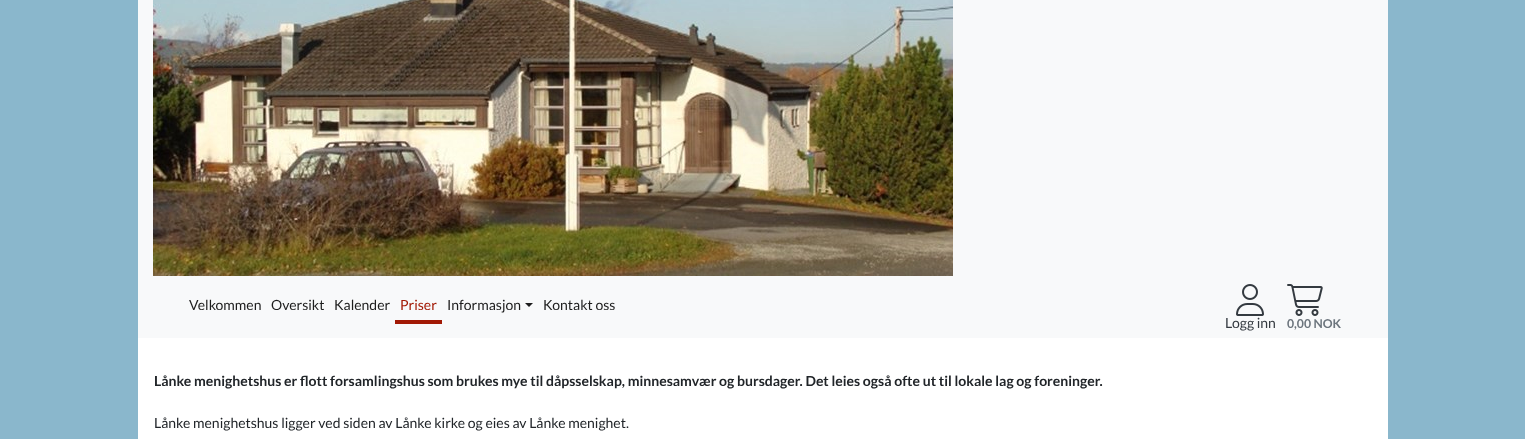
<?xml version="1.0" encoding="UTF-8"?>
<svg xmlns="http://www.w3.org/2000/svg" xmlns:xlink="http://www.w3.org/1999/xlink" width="1525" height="439">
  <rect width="100%" height="100%" fill="#8ab7cc" />
  <rect x="138" width="1250" height="338" fill="#f8f9fa" />
  <image x="153" y="0" width="800" height="276" xlink:href="image1.png" />
  <rect x="395" y="320" width="47" height="4" fill="#a21905" />
  <path d="M 525 303 h 8 l -4 4 z" fill="#1d1d1d" />
  <image x="1236" y="284" width="28" height="32" xlink:href="image2.png" />
  <image x="1287" y="284" width="36" height="32" xlink:href="image3.png" />
  <rect x="138" y="338" width="1250" height="101" fill="#ffffff" />
  <text x="189" y="310" style="font-family: Lato; font-size: 14px; fill: #1d1d1d">Velkommen</text>
  <text x="271" y="310" style="font-family: Lato; font-size: 14px; fill: #1d1d1d">Oversikt</text>
  <text x="334" y="310" style="font-family: Lato; font-size: 14px; fill: #1d1d1d">Kalender</text>
  <text x="400" y="310" style="font-family: Lato; font-size: 14px; fill: #a21905">Priser</text>
  <text x="447" y="310" style="font-family: Lato; font-size: 14px; fill: #1d1d1d">Informasjon</text>
  <text x="543" y="310" style="font-family: Lato; font-size: 14px; fill: #1d1d1d">Kontakt oss</text>
  <text x="1225" y="328" style="font-family: Lato; font-size: 14px; fill: #343a40">Logg inn</text>
  <text x="1287" y="328" style="font-family: Lato; font-size: 12.25px; font-weight: bold; fill: #6c757d">0,00 NOK</text>
  <text x="154" y="386" style="font-family: Lato; font-size: 14px; font-weight: bold; fill: #212529">Lånke menighetshus er flott forsamlingshus som brukes mye til dåpsselskap, minnesamvær og bursdager. Det leies også ofte ut til lokale lag og foreninger.</text>
  <text x="154" y="428" style="font-family: Lato; font-size: 14px; fill: #212529">Lånke menighetshus ligger ved siden av Lånke kirke og eies av Lånke menighet.</text>
</svg>
